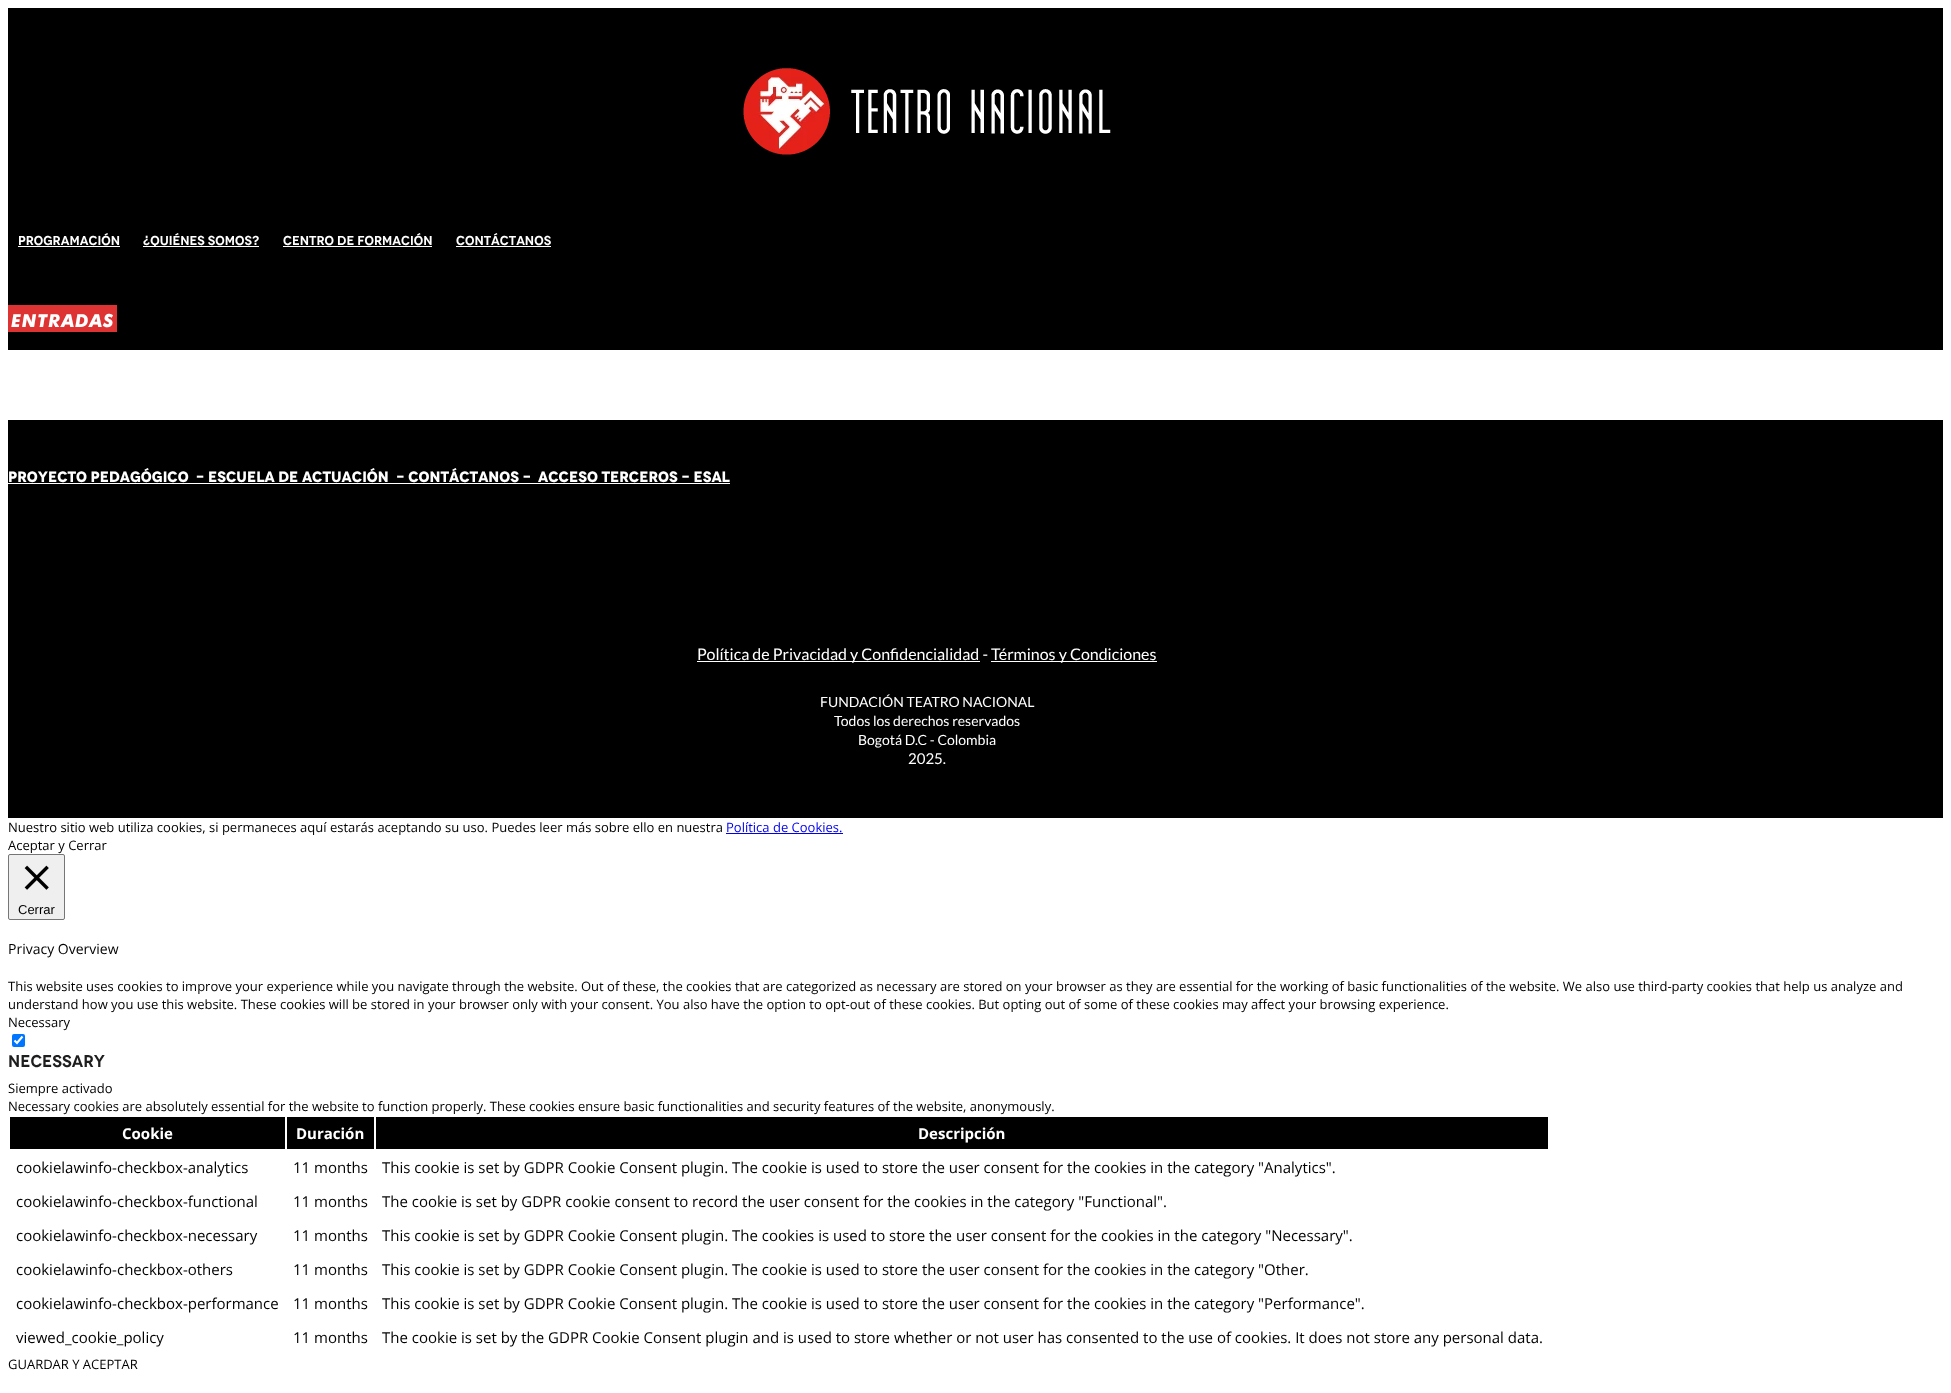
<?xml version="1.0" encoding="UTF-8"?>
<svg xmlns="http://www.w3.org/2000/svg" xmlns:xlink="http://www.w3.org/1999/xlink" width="1951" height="1393">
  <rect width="100%" height="100%" fill="#ffffff" />
  <rect x="8" y="8" width="1935" height="342" fill="#000000" />
  <image x="743" y="68" width="368" height="87" xlink:href="image1.png" />
  <rect x="18" y="246" width="102" height="1" fill="#ffffff" />
  <rect x="143" y="246" width="116" height="1" fill="#ffffff" />
  <rect x="283" y="246" width="149" height="1" fill="#ffffff" />
  <rect x="456" y="246" width="95" height="1" fill="#ffffff" />
  <rect x="8" y="305" width="109" height="27" fill="#dd3333" />
  <rect x="8" y="420" width="1935" height="398" fill="#000000" />
  <rect x="8" y="483" width="722" height="1" fill="#ffffff" />
  <rect x="697" y="661" width="283" height="1" fill="#ffffff" />
  <rect x="991" y="661" width="166" height="1" fill="#ffffff" />
  <rect x="726" y="833" width="117" height="1" fill="#0000ee" />
  <rect x="8.5" y="854.5" width="56" height="65" rx="1.5" fill="#efefef" stroke="#767676" />
  <image x="24" y="865" width="25" height="25" xlink:href="image2.png" />
  <rect x="12" y="1034" width="13" height="13" rx="2" fill="#0075ff" />
  <path d="M 14.5 1040.5 l 2.5 2.5 l 5.5 -6.5" fill="none" stroke="#ffffff" stroke-width="2.1" />
  <rect x="10" y="1117" width="275" height="32" fill="#000000" />
  <rect x="287" y="1117" width="87" height="32" fill="#000000" />
  <rect x="376" y="1117" width="1172" height="32" fill="#000000" />
  <text x="18" y="245" style="font-family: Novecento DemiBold; font-size: 13px; font-weight: 600; fill: #ffffff">Programación</text>
  <text x="143" y="245" style="font-family: Novecento DemiBold; font-size: 13px; font-weight: 600; fill: #ffffff">¿Quiénes Somos?</text>
  <text x="283" y="245" style="font-family: Novecento DemiBold; font-size: 13px; font-weight: 600; fill: #ffffff">Centro de Formación</text>
  <text x="456" y="245" style="font-family: Novecento DemiBold; font-size: 13px; font-weight: 600; fill: #ffffff">Contáctanos</text>
  <text x="11" y="327" style="font-family: Futura; font-size: 18px; font-weight: bold; font-style: italic; letter-spacing: 1px; fill: #ffffff">ENTRADAS</text>
  <text x="8" y="482" style="font-family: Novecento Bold; font-size: 15px; font-weight: bold; fill: #ffffff" xml:space="preserve">PROYECTO PEDAGÓGICO  - ESCUELA DE ACTUACIÓN</text>
  <text x="396" y="482" style="font-family: Novecento Bold; font-size: 15px; font-weight: bold; fill: #ffffff">- CONTÁCTANOS -</text>
  <text x="538" y="482" style="font-family: Novecento Bold; font-size: 15px; font-weight: bold; fill: #ffffff">ACCESO TERCEROS - ESAL</text>
  <text x="697" y="660" style="font-family: Lato; font-size: 16px; fill: #ffffff">Política de Privacidad y Confidencialidad -</text>
  <text x="991" y="660" style="font-family: Lato; font-size: 16px; fill: #ffffff">Términos y Condiciones</text>
  <text x="820" y="707" style="font-family: Lato; font-size: 14px; fill: #ffffff">FUNDACIÓN TEATRO NACIONAL</text>
  <text x="834" y="726" style="font-family: Lato; font-size: 14px; fill: #ffffff">Todos los derechos reservados</text>
  <text x="858" y="745" style="font-family: Lato; font-size: 14px; fill: #ffffff">Bogotá D.C - Colombia</text>
  <text x="908" y="764" style="font-family: Lato; font-size: 15px; fill: #ffffff">2025.</text>
  <text x="8" y="832" style="font-family: Open Sans; font-size: 13px; fill: #000000">Nuestro sitio web utiliza cookies, si permaneces aquí estarás aceptando su uso. Puedes leer más sobre ello en nuestra</text>
  <text x="726" y="832" style="font-family: Open Sans; font-size: 13px; fill: #0000ee">Política de Cookies.</text>
  <text x="8" y="850" style="font-family: Open Sans; font-size: 13px; fill: #000000">Aceptar y Cerrar</text>
  <text x="18" y="914" style="font-family: Liberation Sans; font-size: 13px; fill: #000000">Cerrar</text>
  <text x="8" y="954" style="font-family: Open Sans; font-size: 14px; fill: #000000">Privacy Overview</text>
  <text x="8" y="991" style="font-family: Open Sans; font-size: 13px; fill: #000000">This website uses cookies to improve your experience while you navigate through the website. Out of these, the cookies that are categorized as necessary are stored on your browser as they are essential for the working of basic functionalities of the website. We also use third-party cookies that help us analyze and</text>
  <text x="8" y="1009" style="font-family: Open Sans; font-size: 13px; fill: #000000">understand how you use this website. These cookies will be stored in your browser only with your consent. You also have the option to opt-out of these cookies. But opting out of some of these cookies may affect your browsing experience.</text>
  <text x="8" y="1027" style="font-family: Open Sans; font-size: 13px; fill: #000000">Necessary</text>
  <text x="8" y="1067" style="font-family: Novecento DemiBold; font-size: 17px; font-weight: 600; fill: #1e1e1e">Necessary</text>
  <text x="8" y="1093" style="font-family: Open Sans; font-size: 13px; fill: #000000">Siempre activado</text>
  <text x="8" y="1111" style="font-family: Open Sans; font-size: 13px; fill: #000000">Necessary cookies are absolutely essential for the website to function properly. These cookies ensure basic functionalities and security features of the website, anonymously.</text>
  <text x="122" y="1139" style="font-family: Open Sans; font-size: 15px; font-weight: bold; fill: #ffffff">Cookie</text>
  <text x="296" y="1139" style="font-family: Open Sans; font-size: 15px; font-weight: bold; fill: #ffffff">Duración</text>
  <text x="918" y="1139" style="font-family: Open Sans; font-size: 15px; font-weight: bold; fill: #ffffff">Descripción</text>
  <text x="16" y="1173" style="font-family: Open Sans; font-size: 15px; fill: #000000">cookielawinfo-checkbox-analytics</text>
  <text x="293" y="1173" style="font-family: Open Sans; font-size: 15px; fill: #000000">11 months</text>
  <text x="382" y="1173" style="font-family: Open Sans; font-size: 15px; fill: #000000">This cookie is set by GDPR Cookie Consent plugin. The cookie is used to store the user consent for the cookies in the category "Analytics".</text>
  <text x="16" y="1207" style="font-family: Open Sans; font-size: 15px; fill: #000000">cookielawinfo-checkbox-functional</text>
  <text x="293" y="1207" style="font-family: Open Sans; font-size: 15px; fill: #000000">11 months</text>
  <text x="382" y="1207" style="font-family: Open Sans; font-size: 15px; fill: #000000">The cookie is set by GDPR cookie consent to record the user consent for the cookies in the category "Functional".</text>
  <text x="16" y="1241" style="font-family: Open Sans; font-size: 15px; fill: #000000">cookielawinfo-checkbox-necessary</text>
  <text x="293" y="1241" style="font-family: Open Sans; font-size: 15px; fill: #000000">11 months</text>
  <text x="382" y="1241" style="font-family: Open Sans; font-size: 15px; fill: #000000">This cookie is set by GDPR Cookie Consent plugin. The cookies is used to store the user consent for the cookies in the category "Necessary".</text>
  <text x="16" y="1275" style="font-family: Open Sans; font-size: 15px; fill: #000000">cookielawinfo-checkbox-others</text>
  <text x="293" y="1275" style="font-family: Open Sans; font-size: 15px; fill: #000000">11 months</text>
  <text x="382" y="1275" style="font-family: Open Sans; font-size: 15px; fill: #000000">This cookie is set by GDPR Cookie Consent plugin. The cookie is used to store the user consent for the cookies in the category "Other.</text>
  <text x="16" y="1309" style="font-family: Open Sans; font-size: 15px; fill: #000000">cookielawinfo-checkbox-performance</text>
  <text x="293" y="1309" style="font-family: Open Sans; font-size: 15px; fill: #000000">11 months</text>
  <text x="382" y="1309" style="font-family: Open Sans; font-size: 15px; fill: #000000">This cookie is set by GDPR Cookie Consent plugin. The cookie is used to store the user consent for the cookies in the category "Performance".</text>
  <text x="16" y="1343" style="font-family: Open Sans; font-size: 15px; fill: #000000">viewed_cookie_policy</text>
  <text x="293" y="1343" style="font-family: Open Sans; font-size: 15px; fill: #000000">11 months</text>
  <text x="382" y="1343" style="font-family: Open Sans; font-size: 15px; fill: #000000">The cookie is set by the GDPR Cookie Consent plugin and is used to store whether or not user has consented to the use of cookies. It does not store any personal data.</text>
  <text x="8" y="1369" style="font-family: Open Sans; font-size: 13px; fill: #000000">GUARDAR Y ACEPTAR</text>
</svg>
